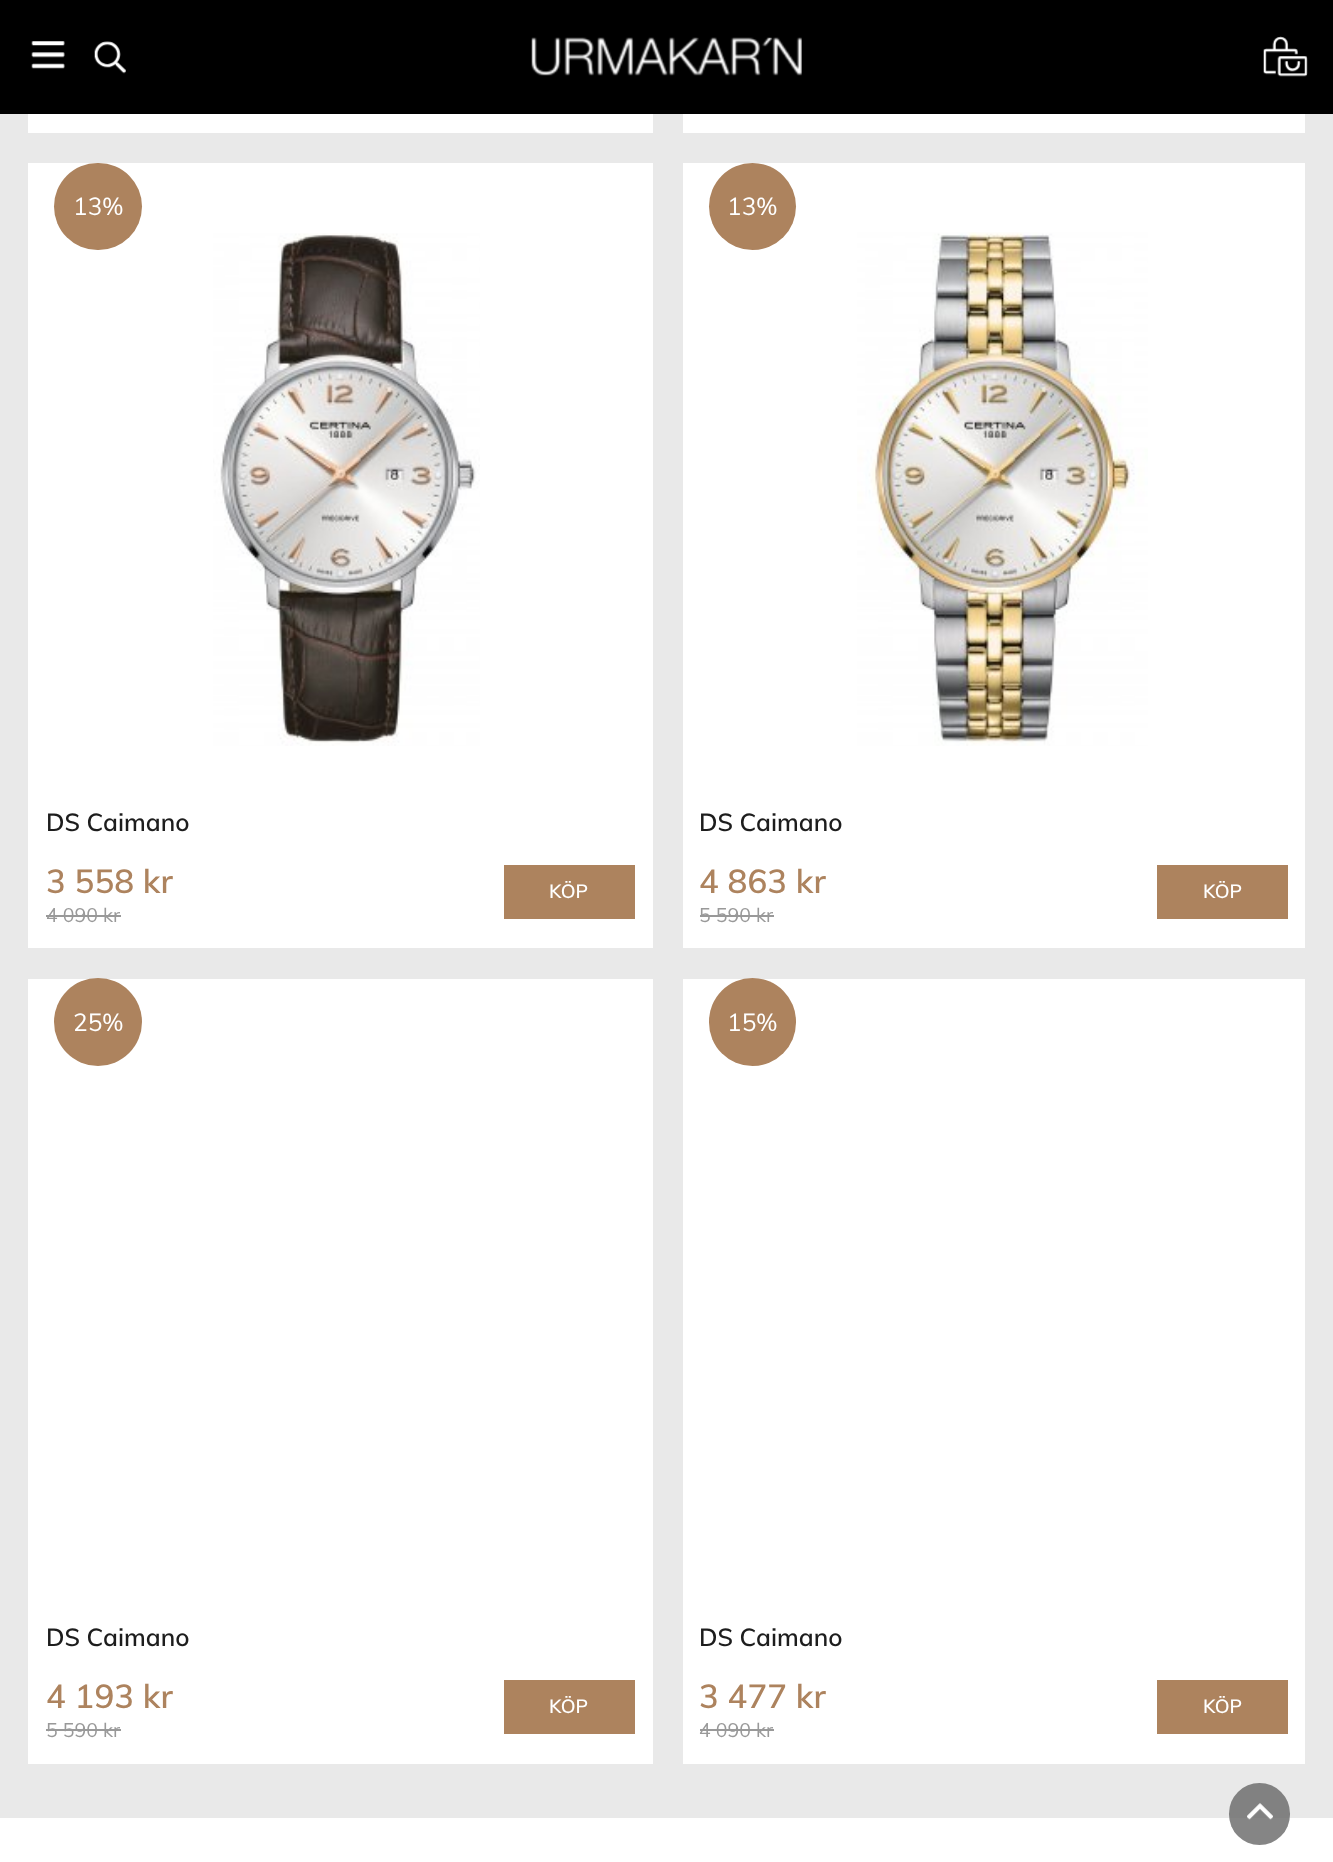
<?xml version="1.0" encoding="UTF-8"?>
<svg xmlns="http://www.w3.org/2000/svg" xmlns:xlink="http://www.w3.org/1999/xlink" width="1333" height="1862">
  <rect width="100%" height="100%" fill="#e9e9e9" />
  <rect width="1333" height="114" fill="#000000" />
  <image x="31" y="41" width="34" height="28" xlink:href="image1.png" />
  <image x="94" y="41" width="32" height="33" xlink:href="image2.png" />
  <image x="531" y="37" width="271" height="39" xlink:href="image3.png" />
  <image x="1263" y="36" width="45" height="41" xlink:href="image4.png" />
  <rect x="28" y="114" width="625" height="19" fill="#ffffff" />
  <rect x="683" y="114" width="622" height="19" fill="#ffffff" />
  <rect x="28" y="163" width="625" height="785" fill="#ffffff" />
  <rect x="54" y="163" width="88" height="87" rx="43.5" fill="#ad835e" />
  <image x="213" y="233" width="267" height="513" xlink:href="image5.png" />
  <rect x="46" y="915" width="75" height="2" fill="#999999" />
  <rect x="504" y="865" width="131" height="54" fill="#ad835e" />
  <rect x="683" y="163" width="622" height="785" fill="#ffffff" />
  <circle cx="752.5" cy="206.5" r="43.5" fill="#ad835e" />
  <image x="857" y="232" width="291" height="514" xlink:href="image6.png" />
  <rect x="700" y="915" width="74" height="2" fill="#999999" />
  <rect x="1157" y="865" width="131" height="54" fill="#ad835e" />
  <rect x="28" y="979" width="625" height="785" fill="#ffffff" />
  <circle cx="98" cy="1022" r="44" fill="#ad835e" />
  <rect x="46" y="1729" width="75" height="2" fill="#999999" />
  <rect x="504" y="1680" width="131" height="54" fill="#ad835e" />
  <rect x="683" y="979" width="622" height="785" fill="#ffffff" />
  <rect x="709" y="978" width="87" height="88" rx="43.5" fill="#ad835e" />
  <rect x="700" y="1729" width="74" height="2" fill="#999999" />
  <rect x="1157" y="1680" width="131" height="54" fill="#ad835e" />
  <rect y="1818" width="1333" height="44" fill="#ffffff" />
  <rect x="1229" y="1783" width="61" height="62" rx="30.5" fill="#666666" fill-opacity="0.8" />
  <image x="1247" y="1803" width="26" height="17" xlink:href="image7.png" />
  <text x="73" y="215" style="font-family: Muli; font-size: 24.5px; fill: #ffffff">13%</text>
  <text x="46" y="831" style="font-family: Muli; font-size: 24.5px; font-weight: 600; fill: #1d1d1d">DS Caimano</text>
  <text x="46" y="893" style="font-family: Muli; font-size: 33px; font-weight: 600; fill: #ad835e">3 558 kr</text>
  <text x="46" y="922" style="font-family: Muli; font-size: 19.5px; fill: #999999">4 090 kr</text>
  <text x="549" y="898" style="font-family: Muli; font-size: 19px; font-weight: 600; fill: #ffffff">KÖP</text>
  <text x="727" y="215" style="font-family: Muli; font-size: 24.5px; fill: #ffffff">13%</text>
  <text x="699" y="831" style="font-family: Muli; font-size: 24.5px; font-weight: 600; fill: #1d1d1d">DS Caimano</text>
  <text x="699" y="893" style="font-family: Muli; font-size: 33px; font-weight: 600; fill: #ad835e">4 863 kr</text>
  <text x="699" y="922" style="font-family: Muli; font-size: 19.5px; fill: #999999">5 590 kr</text>
  <text x="1203" y="898" style="font-family: Muli; font-size: 19px; font-weight: 600; fill: #ffffff">KÖP</text>
  <text x="73" y="1031" style="font-family: Muli; font-size: 24.5px; fill: #ffffff">25%</text>
  <text x="46" y="1646" style="font-family: Muli; font-size: 24.5px; font-weight: 600; fill: #1d1d1d">DS Caimano</text>
  <text x="46" y="1708" style="font-family: Muli; font-size: 33px; font-weight: 600; fill: #ad835e">4 193 kr</text>
  <text x="46" y="1737" style="font-family: Muli; font-size: 19.5px; fill: #999999">5 590 kr</text>
  <text x="549" y="1713" style="font-family: Muli; font-size: 19px; font-weight: 600; fill: #ffffff">KÖP</text>
  <text x="727" y="1031" style="font-family: Muli; font-size: 24.5px; fill: #ffffff">15%</text>
  <text x="699" y="1646" style="font-family: Muli; font-size: 24.5px; font-weight: 600; fill: #1d1d1d">DS Caimano</text>
  <text x="699" y="1708" style="font-family: Muli; font-size: 33px; font-weight: 600; fill: #ad835e">3 477 kr</text>
  <text x="699" y="1737" style="font-family: Muli; font-size: 19.5px; fill: #999999">4 090 kr</text>
  <text x="1203" y="1713" style="font-family: Muli; font-size: 19px; font-weight: 600; fill: #ffffff">KÖP</text>
</svg>
